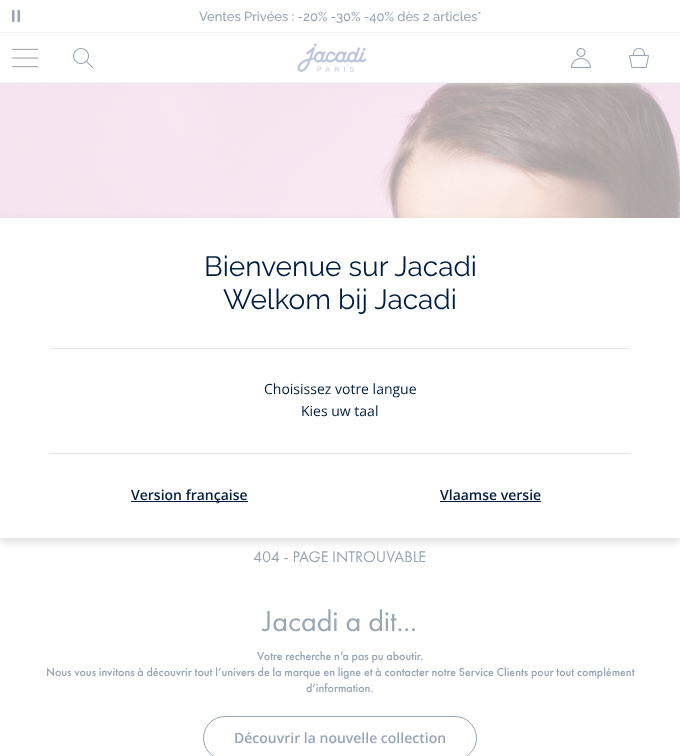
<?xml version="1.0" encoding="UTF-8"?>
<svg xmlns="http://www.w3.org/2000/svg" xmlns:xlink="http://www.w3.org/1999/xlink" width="680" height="756">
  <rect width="100%" height="100%" fill="#ffffff" />
  <image x="0" y="83" width="680" height="135" xlink:href="image7.png" />
  <rect y="2" width="680" height="83" fill="#eeeeee" fill-opacity="0.5" filter="blur(2px)" />
  <rect y="1" width="680" height="81" fill="#ffffff" />
  <rect y="32" width="680" height="1" fill="#f3f4f6" />
  <image x="12" y="10" width="8" height="12" xlink:href="image1.png" />
  <rect y="82" width="680" height="1" fill="#f3f4f6" />
  <image x="12" y="48" width="27" height="20" xlink:href="image2.png" />
  <image x="73" y="48" width="20" height="20" xlink:href="image3.png" />
  <image x="297" y="43" width="70" height="29" xlink:href="image4.png" />
  <image x="571" y="48" width="20" height="20" xlink:href="image5.png" />
  <image x="629" y="48" width="20" height="20" xlink:href="image6.png" />
  <rect x="662" y="220" width="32" height="38" rx="8" fill="#999999" fill-opacity="0.2" filter="blur(2px)" />
  <rect y="222" width="680" height="320" fill="#bababa" fill-opacity="0.5" filter="blur(4px)" />
  <rect y="218" width="680" height="320" fill="#ffffff" />
  <rect x="50" y="348" width="580" height="1" fill="#e1e5ef" />
  <rect x="50" y="453" width="580" height="1" fill="#e1e5ef" />
  <rect x="131" y="501" width="117" height="1" fill="#011e41" />
  <rect x="440" y="501" width="101" height="1" fill="#011e41" />
  <rect x="203.5" y="716.5" width="273" height="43" rx="21.5" fill="none" stroke="#99a5b3" />
  <text x="199" y="21" style="font-family: Raleway; font-size: 13px; font-weight: 100; fill: #99a5b3">Ventes Privées : -20% -30% -40% dès 2 articles*</text>
  <text x="204" y="276" style="font-family: 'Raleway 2'; font-size: 28px; font-weight: 100; fill: #011e41">Bienvenue sur Jacadi</text>
  <text x="223" y="309" style="font-family: 'Raleway 2'; font-size: 28px; font-weight: 100; fill: #011e41">Welkom bij Jacadi</text>
  <text x="264" y="394" style="font-family: Open Sans; font-size: 14px; fill: #011e41">Choisissez votre langue</text>
  <text x="301" y="416" style="font-family: Open Sans; font-size: 14px; fill: #011e41">Kies uw taal</text>
  <text x="131" y="500" style="font-family: Open Sans; font-size: 14px; font-weight: 600; fill: #011e41">Version française</text>
  <text x="440" y="500" style="font-family: Open Sans; font-size: 14px; font-weight: 600; fill: #011e41">Vlaamse versie</text>
  <text x="253" y="562" style="font-family: Futura PT; font-size: 16px; fill: #99a5b3">404 - PAGE INTROUVABLE</text>
  <text x="263" y="631" style="font-family: Futura PT; font-size: 30px; fill: #99a5b3">Jacadi a dit...</text>
  <text x="257" y="660" style="font-family: Futura PT; font-size: 12px; font-weight: 500; fill: #99a5b3">Votre recherche n’a pas pu aboutir.</text>
  <text x="46" y="676" style="font-family: Futura PT; font-size: 12px; font-weight: 500; fill: #99a5b3">Nous vous invitons à découvrir tout l’univers de la marque en ligne et à contacter notre Service Clients pour tout complément</text>
  <text x="306" y="692" style="font-family: Futura PT; font-size: 12px; font-weight: 500; fill: #99a5b3">d’information.</text>
  <text x="234" y="743" style="font-family: Open Sans; font-size: 14px; font-weight: 600; fill: #99a5b3">Découvrir la nouvelle collection</text>
</svg>
